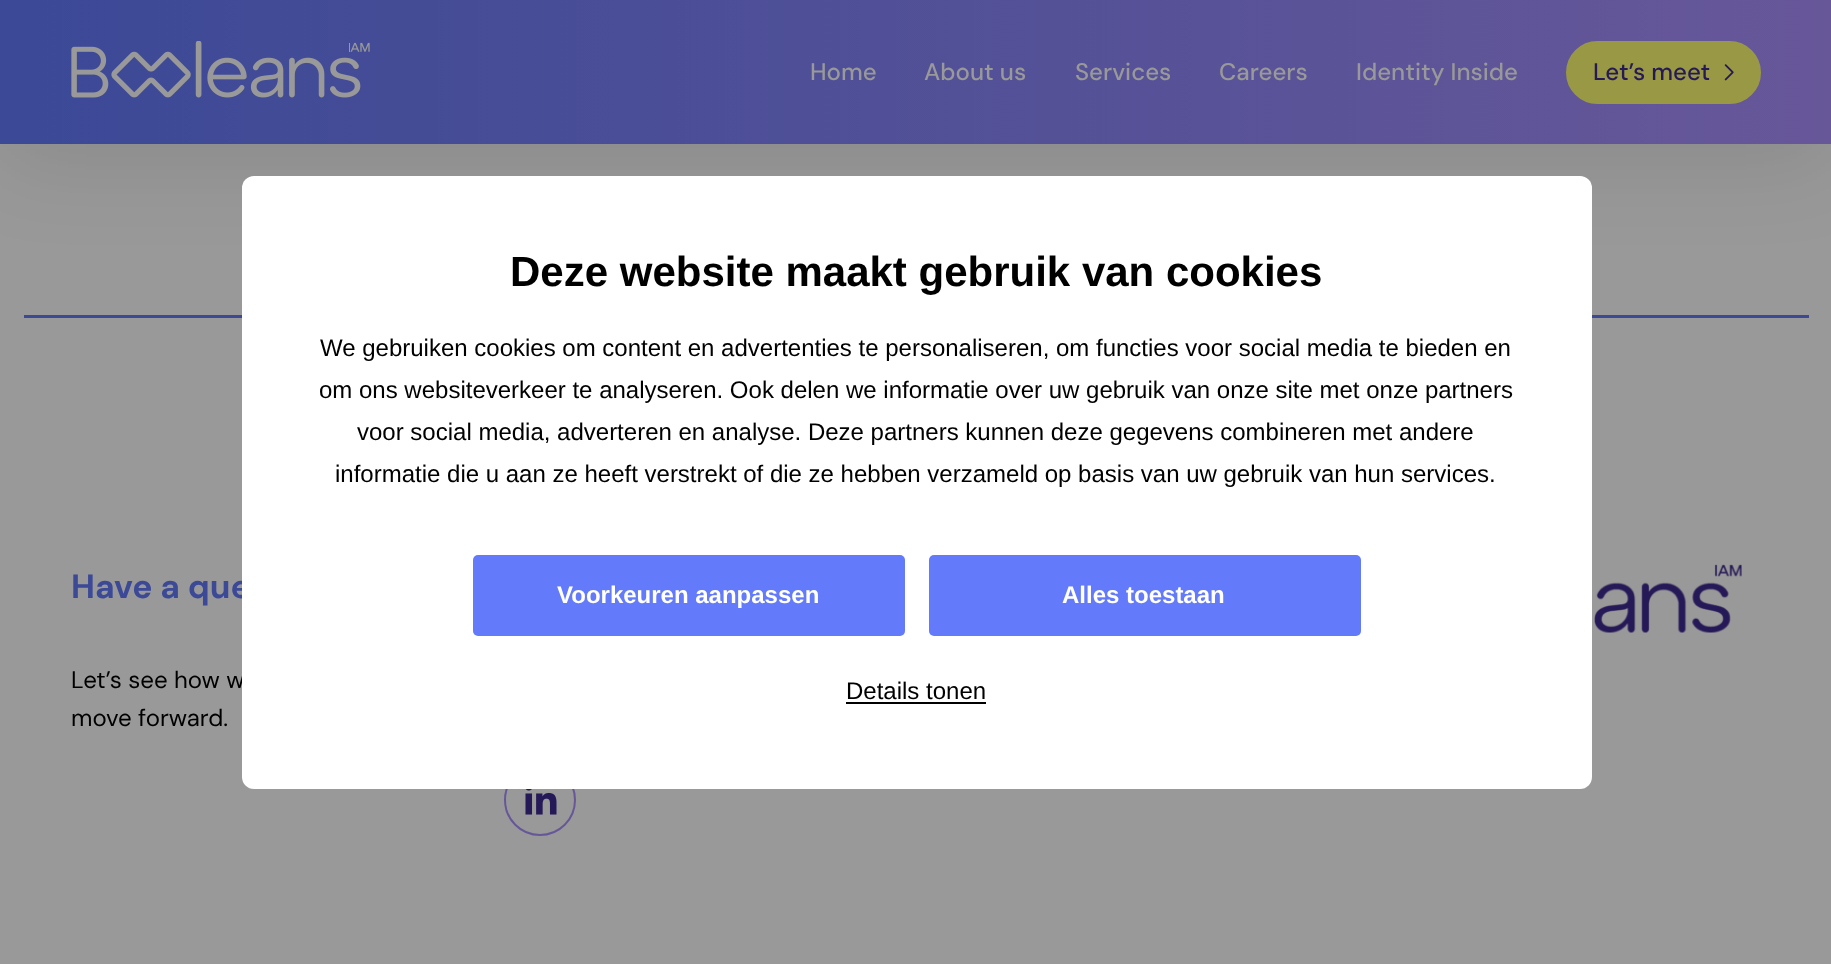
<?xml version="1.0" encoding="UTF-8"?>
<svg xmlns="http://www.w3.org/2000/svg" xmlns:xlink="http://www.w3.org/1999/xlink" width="1831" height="964">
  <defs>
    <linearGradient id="g1" gradientUnits="userSpaceOnUse" x1="0" y1="72" x2="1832" y2="72"><stop offset="0" stop-color="#3b4996" /><stop offset="1" stop-color="#675799" /></linearGradient>
  </defs>
  <rect width="100%" height="100%" fill="#999999" />
  <rect y="15" width="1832" height="144" fill="#000000" fill-opacity="0.1" filter="blur(45px)" />
  <rect width="1831" height="144" fill="url(#g1)" />
  <image x="71" y="41" width="299" height="57" xlink:href="image1.png" />
  <rect x="1567.5" y="42.5" width="192" height="60" rx="30" fill="#999945" stroke="#999945" stroke-width="3" />
  <image x="1724" y="64" width="10" height="17" xlink:href="image2.png" />
  <rect x="24" y="315" width="1785" height="3" fill="#3b4996" />
  <image x="1594" y="564" width="148" height="69" xlink:href="image3.png" />
  <circle cx="540" cy="800" r="35" fill="none" stroke="#675799" stroke-width="2" />
  <image x="525" y="789" width="32" height="26" xlink:href="image4.png" />
  <text x="810" y="80" style="font-family: DM Sans; font-size: 24px; font-weight: 500; fill: #999999">Home</text>
  <text x="924" y="80" style="font-family: DM Sans; font-size: 24px; font-weight: 500; fill: #999999">About us</text>
  <text x="1075" y="80" style="font-family: DM Sans; font-size: 24px; font-weight: 500; fill: #999999">Services</text>
  <text x="1219" y="80" style="font-family: DM Sans; font-size: 24px; font-weight: 500; fill: #999999">Careers</text>
  <text x="1356" y="80" style="font-family: DM Sans; font-size: 24px; font-weight: 500; fill: #999999">Identity Inside</text>
  <text x="1593" y="80" style="font-family: DM Sans; font-size: 24px; font-weight: 500; fill: #261957">Let’s meet</text>
  <text x="71" y="598" style="font-family: DM Sans; font-size: 33.5px; font-weight: bold; fill: #3b4996">Have a que</text>
  <text x="71" y="688" style="font-family: DM Sans; font-size: 24px; fill: #000000">Let’s see how w</text>
  <text x="71" y="726" style="font-family: DM Sans; font-size: 24px; fill: #000000">move forward.</text>
  <rect x="242" y="176" width="1350" height="613" rx="12" fill="#ffffff" />
  <text x="510" y="286" style="font-family: Liberation Sans; font-size: 42px; font-weight: bold; fill: #000000">Deze website maakt gebruik van cookies</text>
  <text x="320" y="356" style="font-family: Liberation Sans; font-size: 24px; fill: #000000">We gebruiken cookies om content en advertenties te personaliseren, om functies voor social media te bieden en</text>
  <text x="319" y="398" style="font-family: Liberation Sans; font-size: 24px; fill: #000000">om ons websiteverkeer te analyseren. Ook delen we informatie over uw gebruik van onze site met onze partners</text>
  <text x="357" y="440" style="font-family: Liberation Sans; font-size: 24px; fill: #000000">voor social media, adverteren en analyse. Deze partners kunnen deze gegevens combineren met andere</text>
  <text x="335" y="482" style="font-family: Liberation Sans; font-size: 24px; fill: #000000">informatie die u aan ze heeft verstrekt of die ze hebben verzameld op basis van uw gebruik van hun services.</text>
  <rect x="473" y="555" width="432" height="81" rx="5" fill="#637afa" />
  <text x="557" y="603" style="font-family: Liberation Sans; font-size: 24px; font-weight: bold; fill: #ffffff">Voorkeuren aanpassen</text>
  <rect x="929" y="555" width="432" height="81" rx="5" fill="#637afa" />
  <text x="1062" y="603" style="font-family: Liberation Sans; font-size: 24px; font-weight: bold; fill: #ffffff">Alles toestaan</text>
  <text x="846" y="699" style="font-family: Liberation Sans; font-size: 24px; fill: #000000">Details tonen</text>
  <rect x="846" y="702" width="140" height="2" fill="#000000" />
</svg>
